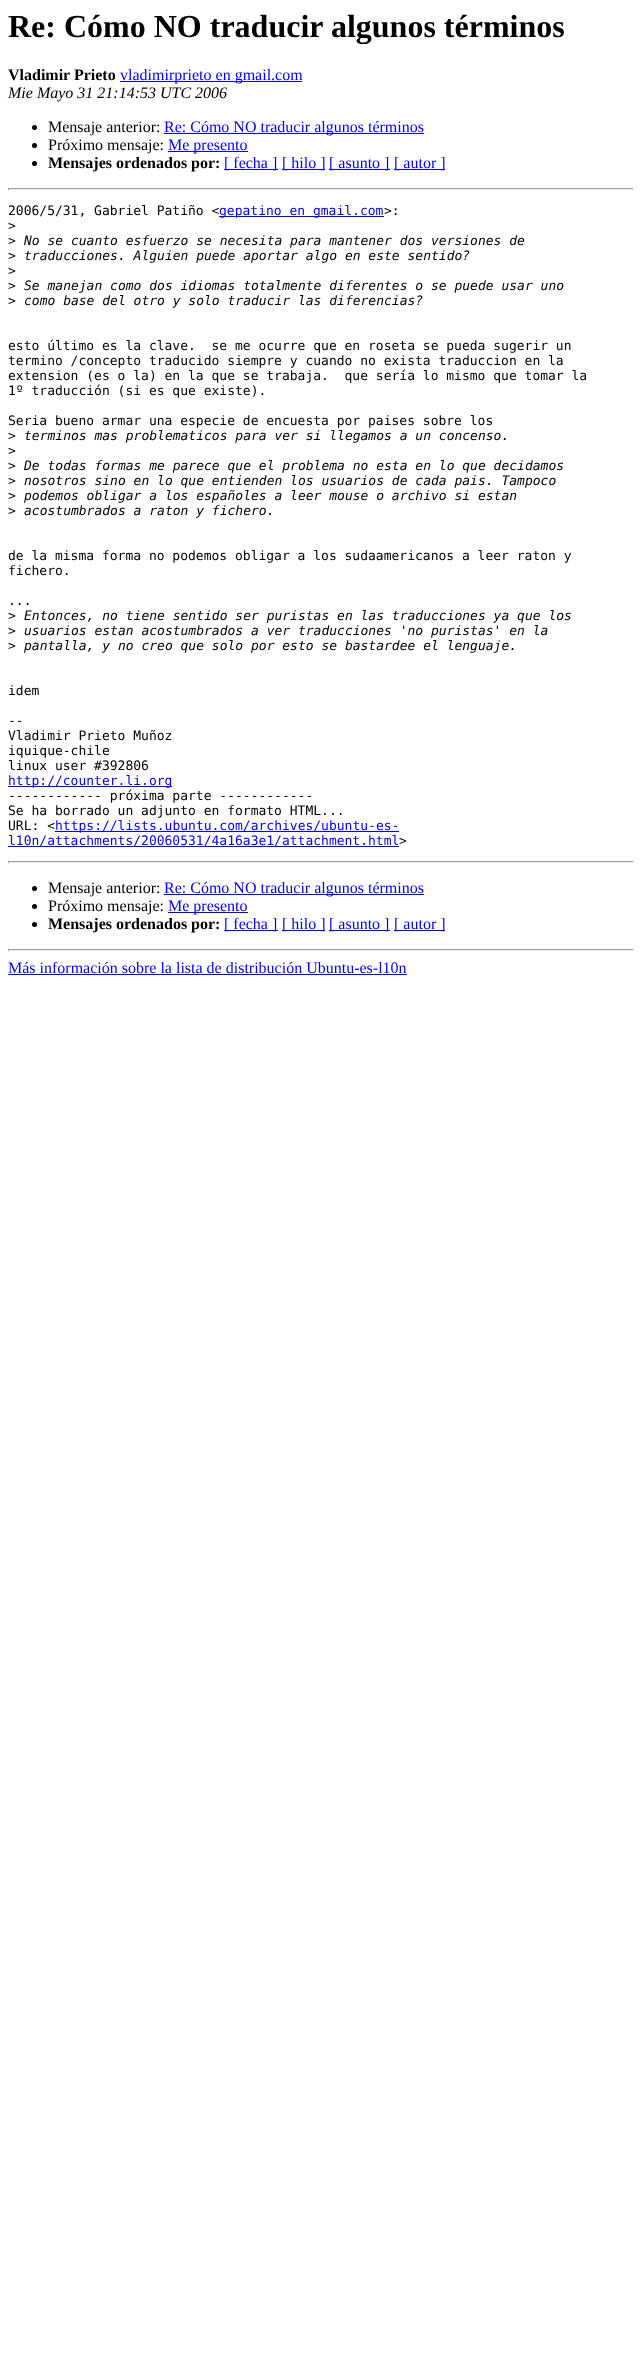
<?xml version="1.0" encoding="UTF-8"?>
<svg xmlns="http://www.w3.org/2000/svg" xmlns:xlink="http://www.w3.org/1999/xlink" width="642" height="2355">
  <rect width="100%" height="100%" fill="#ffffff" />
  <rect x="120" y="81" width="182" height="1" fill="#0000ee" />
  <circle cx="34.5" cy="127.5" r="2.5" fill="#000000" />
  <rect x="164" y="133" width="260" height="1" fill="#0000ee" />
  <circle cx="34.5" cy="145.5" r="2.5" fill="#000000" />
  <rect x="168" y="151" width="80" height="1" fill="#0000ee" />
  <circle cx="34.5" cy="163.5" r="2.5" fill="#000000" />
  <rect x="224" y="169" width="54" height="1" fill="#0000ee" />
  <rect x="282" y="169" width="43" height="1" fill="#0000ee" />
  <rect x="329" y="169" width="61" height="1" fill="#0000ee" />
  <rect x="394" y="169" width="51" height="1" fill="#0000ee" />
  <rect x="8" y="188" width="626" height="1" fill="#9f9f9f" />
  <rect x="633" y="188" width="1" height="2" fill="#eeeeee" />
  <rect x="8" y="189" width="626" height="1" fill="#eeeeee" />
  <rect x="8" y="188" width="1" height="2" fill="#9f9f9f" />
  <rect x="219" y="216" width="165" height="1" fill="#0000ee" />
  <rect x="8" y="786" width="164" height="1" fill="#0000ee" />
  <rect x="55" y="831" width="344" height="1" fill="#0000ee" />
  <rect x="8" y="846" width="391" height="1" fill="#0000ee" />
  <rect x="8" y="861" width="626" height="1" fill="#9f9f9f" />
  <rect x="633" y="861" width="1" height="2" fill="#eeeeee" />
  <rect x="8" y="862" width="626" height="1" fill="#eeeeee" />
  <rect x="8" y="861" width="1" height="2" fill="#9f9f9f" />
  <circle cx="34.5" cy="888.5" r="2.5" fill="#000000" />
  <rect x="164" y="894" width="260" height="1" fill="#0000ee" />
  <circle cx="34.5" cy="906.5" r="2.5" fill="#000000" />
  <rect x="168" y="912" width="80" height="1" fill="#0000ee" />
  <circle cx="34.5" cy="924.5" r="2.5" fill="#000000" />
  <rect x="224" y="930" width="54" height="1" fill="#0000ee" />
  <rect x="282" y="930" width="43" height="1" fill="#0000ee" />
  <rect x="329" y="930" width="61" height="1" fill="#0000ee" />
  <rect x="394" y="930" width="51" height="1" fill="#0000ee" />
  <rect x="8" y="949" width="626" height="1" fill="#9f9f9f" />
  <rect x="633" y="949" width="1" height="2" fill="#eeeeee" />
  <rect x="8" y="950" width="626" height="1" fill="#eeeeee" />
  <rect x="8" y="949" width="1" height="2" fill="#9f9f9f" />
  <rect x="8" y="974" width="399" height="1" fill="#0000ee" />
  <text x="8" y="37" style="font-family: Liberation Serif; font-size: 32px; font-weight: bold; fill: #000000">Re: Cómo NO traducir algunos términos</text>
  <text x="8" y="80" style="font-family: Liberation Serif; font-size: 16px; font-weight: bold; fill: #000000">Vladimir Prieto</text>
  <text x="120" y="80" style="font-family: Liberation Serif; font-size: 16px; fill: #0000ee">vladimirprieto en gmail.com</text>
  <text x="8" y="98" style="font-family: Liberation Serif; font-size: 16px; font-style: italic; fill: #000000">Mie Mayo 31 21:14:53 UTC 2006</text>
  <text x="48" y="132" style="font-family: Liberation Serif; font-size: 16px; fill: #000000">Mensaje anterior:</text>
  <text x="164" y="132" style="font-family: Liberation Serif; font-size: 16px; fill: #0000ee">Re: Cómo NO traducir algunos términos</text>
  <text x="48" y="150" style="font-family: Liberation Serif; font-size: 16px; fill: #000000">Próximo mensaje:</text>
  <text x="168" y="150" style="font-family: Liberation Serif; font-size: 16px; fill: #0000ee">Me presento</text>
  <text x="48" y="168" style="font-family: Liberation Serif; font-size: 16px; font-weight: bold; fill: #000000">Mensajes ordenados por:</text>
  <text x="224" y="168" style="font-family: Liberation Serif; font-size: 16px; fill: #0000ee">[ fecha ]</text>
  <text x="282" y="168" style="font-family: Liberation Serif; font-size: 16px; fill: #0000ee">[ hilo ]</text>
  <text x="329" y="168" style="font-family: Liberation Serif; font-size: 16px; fill: #0000ee">[ asunto ]</text>
  <text x="394" y="168" style="font-family: Liberation Serif; font-size: 16px; fill: #0000ee">[ autor ]</text>
  <text x="8" y="215" style="font-family: DejaVu Sans Mono; font-size: 13px; fill: #000000">2006/5/31, Gabriel Patiño &lt;</text>
  <text x="219" y="215" style="font-family: DejaVu Sans Mono; font-size: 13px; fill: #0000ee">gepatino en gmail.com</text>
  <text x="384" y="215" style="font-family: DejaVu Sans Mono; font-size: 13px; fill: #000000">&gt;:</text>
  <text x="8" y="230" style="font-family: DejaVu Sans Mono; font-size: 13px; fill: #000000">&gt;</text>
  <text x="8" y="245" style="font-family: DejaVu Sans Mono; font-size: 13px; fill: #000000">&gt;</text>
  <text x="24" y="245" style="font-family: DejaVu Sans Mono; font-size: 13px; font-style: italic; fill: #000000">No se cuanto esfuerzo se necesita para mantener dos versiones de</text>
  <text x="8" y="260" style="font-family: DejaVu Sans Mono; font-size: 13px; fill: #000000">&gt;</text>
  <text x="24" y="260" style="font-family: DejaVu Sans Mono; font-size: 13px; font-style: italic; fill: #000000">traducciones. Alguien puede aportar algo en este sentido?</text>
  <text x="8" y="275" style="font-family: DejaVu Sans Mono; font-size: 13px; fill: #000000">&gt;</text>
  <text x="8" y="290" style="font-family: DejaVu Sans Mono; font-size: 13px; fill: #000000">&gt;</text>
  <text x="24" y="290" style="font-family: DejaVu Sans Mono; font-size: 13px; font-style: italic; fill: #000000">Se manejan como dos idiomas totalmente diferentes o se puede usar uno</text>
  <text x="8" y="305" style="font-family: DejaVu Sans Mono; font-size: 13px; fill: #000000">&gt;</text>
  <text x="24" y="305" style="font-family: DejaVu Sans Mono; font-size: 13px; font-style: italic; fill: #000000">como base del otro y solo traducir las diferencias?</text>
  <text x="8" y="350" style="font-family: DejaVu Sans Mono; font-size: 13px; fill: #000000" xml:space="preserve">esto último es la clave.  se me ocurre que en roseta se pueda sugerir un</text>
  <text x="8" y="365" style="font-family: DejaVu Sans Mono; font-size: 13px; fill: #000000">termino /concepto traducido siempre y cuando no exista traduccion en la</text>
  <text x="8" y="380" style="font-family: DejaVu Sans Mono; font-size: 13px; fill: #000000" xml:space="preserve">extension (es o la) en la que se trabaja.  que sería lo mismo que tomar la</text>
  <text x="8" y="395" style="font-family: DejaVu Sans Mono; font-size: 13px; fill: #000000">1º traducción (si es que existe).</text>
  <text x="8" y="425" style="font-family: DejaVu Sans Mono; font-size: 13px; fill: #000000">Seria bueno armar una especie de encuesta por paises sobre los</text>
  <text x="8" y="440" style="font-family: DejaVu Sans Mono; font-size: 13px; fill: #000000">&gt;</text>
  <text x="24" y="440" style="font-family: DejaVu Sans Mono; font-size: 13px; font-style: italic; fill: #000000">terminos mas problematicos para ver si llegamos a un concenso.</text>
  <text x="8" y="455" style="font-family: DejaVu Sans Mono; font-size: 13px; fill: #000000">&gt;</text>
  <text x="8" y="470" style="font-family: DejaVu Sans Mono; font-size: 13px; fill: #000000">&gt;</text>
  <text x="24" y="470" style="font-family: DejaVu Sans Mono; font-size: 13px; font-style: italic; fill: #000000">De todas formas me parece que el problema no esta en lo que decidamos</text>
  <text x="8" y="485" style="font-family: DejaVu Sans Mono; font-size: 13px; fill: #000000">&gt;</text>
  <text x="24" y="485" style="font-family: DejaVu Sans Mono; font-size: 13px; font-style: italic; fill: #000000">nosotros sino en lo que entienden los usuarios de cada pais. Tampoco</text>
  <text x="8" y="500" style="font-family: DejaVu Sans Mono; font-size: 13px; fill: #000000">&gt;</text>
  <text x="24" y="500" style="font-family: DejaVu Sans Mono; font-size: 13px; font-style: italic; fill: #000000">podemos obligar a los españoles a leer mouse o archivo si estan</text>
  <text x="8" y="515" style="font-family: DejaVu Sans Mono; font-size: 13px; fill: #000000">&gt;</text>
  <text x="24" y="515" style="font-family: DejaVu Sans Mono; font-size: 13px; font-style: italic; fill: #000000">acostumbrados a raton y fichero.</text>
  <text x="8" y="560" style="font-family: DejaVu Sans Mono; font-size: 13px; fill: #000000">de la misma forma no podemos obligar a los sudaamericanos a leer raton y</text>
  <text x="8" y="575" style="font-family: DejaVu Sans Mono; font-size: 13px; fill: #000000">fichero.</text>
  <text x="8" y="605" style="font-family: DejaVu Sans Mono; font-size: 13px; fill: #000000">...</text>
  <text x="8" y="620" style="font-family: DejaVu Sans Mono; font-size: 13px; fill: #000000">&gt;</text>
  <text x="24" y="620" style="font-family: DejaVu Sans Mono; font-size: 13px; font-style: italic; fill: #000000">Entonces, no tiene sentido ser puristas en las traducciones ya que los</text>
  <text x="8" y="635" style="font-family: DejaVu Sans Mono; font-size: 13px; fill: #000000">&gt;</text>
  <text x="24" y="635" style="font-family: DejaVu Sans Mono; font-size: 13px; font-style: italic; fill: #000000">usuarios estan acostumbrados a ver traducciones 'no puristas' en la</text>
  <text x="8" y="650" style="font-family: DejaVu Sans Mono; font-size: 13px; fill: #000000">&gt;</text>
  <text x="24" y="650" style="font-family: DejaVu Sans Mono; font-size: 13px; font-style: italic; fill: #000000">pantalla, y no creo que solo por esto se bastardee el lenguaje.</text>
  <text x="8" y="695" style="font-family: DejaVu Sans Mono; font-size: 13px; fill: #000000">idem</text>
  <text x="8" y="725" style="font-family: DejaVu Sans Mono; font-size: 13px; fill: #000000">--</text>
  <text x="8" y="740" style="font-family: DejaVu Sans Mono; font-size: 13px; fill: #000000">Vladimir Prieto Muñoz</text>
  <text x="8" y="755" style="font-family: DejaVu Sans Mono; font-size: 13px; fill: #000000">iquique-chile</text>
  <text x="8" y="770" style="font-family: DejaVu Sans Mono; font-size: 13px; fill: #000000">linux user #392806</text>
  <text x="8" y="785" style="font-family: DejaVu Sans Mono; font-size: 13px; fill: #0000ee">http://counter.li.org</text>
  <text x="8" y="800" style="font-family: DejaVu Sans Mono; font-size: 13px; fill: #000000">------------ próxima parte ------------</text>
  <text x="8" y="815" style="font-family: DejaVu Sans Mono; font-size: 13px; fill: #000000">Se ha borrado un adjunto en formato HTML...</text>
  <text x="8" y="830" style="font-family: DejaVu Sans Mono; font-size: 13px; fill: #000000">URL: &lt;</text>
  <text x="55" y="830" style="font-family: DejaVu Sans Mono; font-size: 13px; fill: #0000ee">https://lists.ubuntu.com/archives/ubuntu-es-</text>
  <text x="8" y="845" style="font-family: DejaVu Sans Mono; font-size: 13px; fill: #0000ee">l10n/attachments/20060531/4a16a3e1/attachment.html</text>
  <text x="399" y="845" style="font-family: DejaVu Sans Mono; font-size: 13px; fill: #000000">&gt;</text>
  <text x="48" y="893" style="font-family: Liberation Serif; font-size: 16px; fill: #000000">Mensaje anterior:</text>
  <text x="164" y="893" style="font-family: Liberation Serif; font-size: 16px; fill: #0000ee">Re: Cómo NO traducir algunos términos</text>
  <text x="48" y="911" style="font-family: Liberation Serif; font-size: 16px; fill: #000000">Próximo mensaje:</text>
  <text x="168" y="911" style="font-family: Liberation Serif; font-size: 16px; fill: #0000ee">Me presento</text>
  <text x="48" y="929" style="font-family: Liberation Serif; font-size: 16px; font-weight: bold; fill: #000000">Mensajes ordenados por:</text>
  <text x="224" y="929" style="font-family: Liberation Serif; font-size: 16px; fill: #0000ee">[ fecha ]</text>
  <text x="282" y="929" style="font-family: Liberation Serif; font-size: 16px; fill: #0000ee">[ hilo ]</text>
  <text x="329" y="929" style="font-family: Liberation Serif; font-size: 16px; fill: #0000ee">[ asunto ]</text>
  <text x="394" y="929" style="font-family: Liberation Serif; font-size: 16px; fill: #0000ee">[ autor ]</text>
  <text x="8" y="973" style="font-family: Liberation Serif; font-size: 16px; fill: #0000ee">Más información sobre la lista de distribución Ubuntu-es-l10n</text>
</svg>
